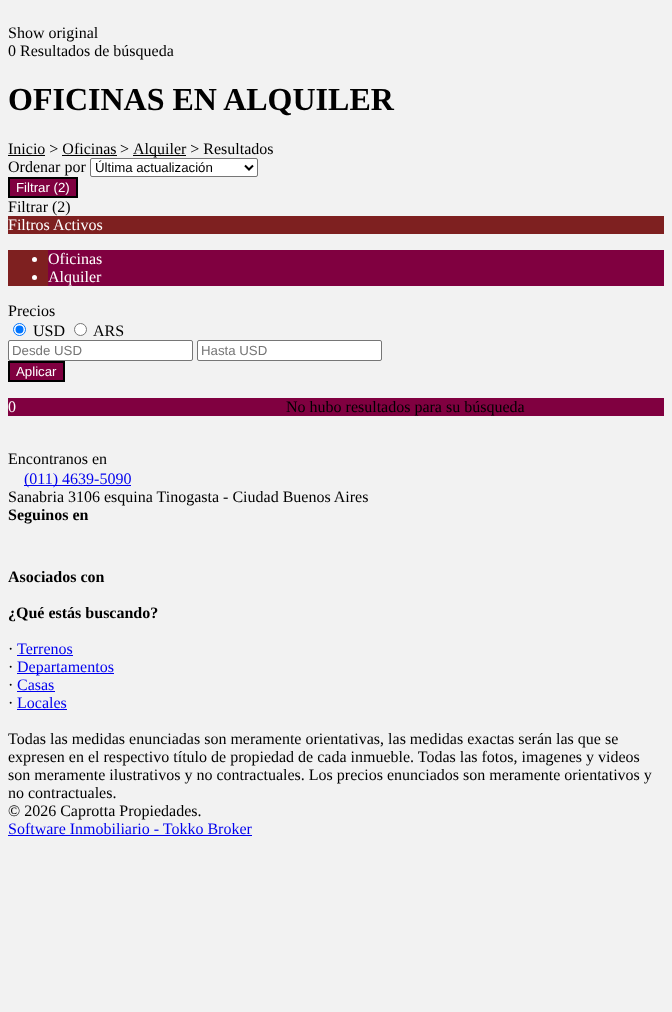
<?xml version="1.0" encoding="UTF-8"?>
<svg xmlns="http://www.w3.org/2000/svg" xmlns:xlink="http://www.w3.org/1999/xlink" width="672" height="1012">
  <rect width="100%" height="100%" fill="#f2f2f2" />
  <rect x="8" y="155" width="37" height="1" fill="#000000" />
  <rect x="133" y="155" width="53" height="1" fill="#000000" />
  <rect x="62" y="155" width="55" height="1" fill="#000000" />
  <rect x="90.5" y="158.5" width="167" height="18" rx="1.5" fill="#ffffff" stroke="#767676" />
  <path d="M 245 165.5 l 4 4 l 4 -4" fill="none" stroke="#000000" stroke-width="2" />
  <rect x="9" y="178" width="68" height="19" fill="#800040" stroke="#000000" stroke-width="2" />
  <rect x="8" y="216" width="656" height="18" fill="#7e2020" />
  <rect x="8" y="250" width="40" height="36" fill="#7e2020" />
  <rect x="48" y="250" width="616" height="36" fill="#800040" />
  <circle cx="34.5" cy="259.5" r="2.5" fill="#ffffff" />
  <circle cx="34.5" cy="277.5" r="2.5" fill="#ffffff" />
  <circle cx="19.5" cy="329.5" r="6" fill="#ffffff" stroke="#0075ff" />
  <circle cx="19.5" cy="329.5" r="4" fill="#0075ff" />
  <circle cx="80.5" cy="329.5" r="6" fill="#ffffff" stroke="#767676" />
  <rect x="8.5" y="340.5" width="184" height="20" rx="1.5" fill="#ffffff" stroke="#767676" />
  <rect x="197.5" y="340.5" width="184" height="20" rx="1.5" fill="#ffffff" stroke="#767676" />
  <rect x="9" y="362" width="55" height="19" fill="#800040" stroke="#000000" stroke-width="2" />
  <rect x="8" y="398" width="656" height="18" fill="#800040" />
  <rect x="24" y="485" width="107" height="1" fill="#0000ee" />
  <rect x="17" y="655" width="56" height="1" fill="#0000ee" />
  <rect x="17" y="673" width="97" height="1" fill="#0000ee" />
  <rect x="17" y="691" width="38" height="1" fill="#0000ee" />
  <rect x="17" y="709" width="50" height="1" fill="#0000ee" />
  <rect x="8" y="835" width="244" height="1" fill="#0000ee" />
  <text x="8" y="38" style="font-family: Liberation Serif; font-size: 16px; fill: #000000">Show original</text>
  <text x="8" y="56" style="font-family: Liberation Serif; font-size: 16px; fill: #000000">0 Resultados de búsqueda</text>
  <text x="8" y="110" style="font-family: Liberation Serif; font-size: 32px; font-weight: bold; fill: #000000">OFICINAS EN ALQUILER</text>
  <text x="8" y="154" style="font-family: Liberation Serif; font-size: 16px; fill: #000000">Inicio &gt; Oficinas</text>
  <text x="120" y="154" style="font-family: Liberation Serif; font-size: 16px; fill: #000000">&gt;</text>
  <text x="133" y="154" style="font-family: Liberation Serif; font-size: 16px; fill: #000000">Alquiler &gt; Resultados</text>
  <text x="8" y="172" style="font-family: Liberation Serif; font-size: 16px; fill: #000000">Ordenar por</text>
  <text x="95" y="172" style="font-family: Liberation Sans; font-size: 13.25px; fill: #000000">Última actualización</text>
  <text x="16" y="192" style="font-family: Liberation Sans; font-size: 13.25px; fill: #ffffff">Filtrar (2)</text>
  <text x="8" y="212" style="font-family: Liberation Serif; font-size: 16px; fill: #000000">Filtrar (2)</text>
  <text x="8" y="230" style="font-family: Liberation Serif; font-size: 16px; fill: #ffffff">Filtros Activos</text>
  <text x="48" y="264" style="font-family: Liberation Serif; font-size: 16px; fill: #ffffff">Oficinas</text>
  <text x="48" y="282" style="font-family: Liberation Serif; font-size: 16px; fill: #ffffff">Alquiler</text>
  <text x="8" y="316" style="font-family: Liberation Serif; font-size: 16px; fill: #000000">Precios</text>
  <text x="33" y="336" style="font-family: Liberation Serif; font-size: 16px; fill: #000000">USD</text>
  <text x="93" y="336" style="font-family: Liberation Serif; font-size: 16px; fill: #000000">ARS</text>
  <text x="12" y="355" style="font-family: Liberation Sans; font-size: 13.25px; fill: #757575">Desde USD</text>
  <text x="201" y="355" style="font-family: Liberation Sans; font-size: 13.25px; fill: #757575">Hasta USD</text>
  <text x="16" y="376" style="font-family: Liberation Sans; font-size: 13.25px; fill: #ffffff">Aplicar</text>
  <text x="286" y="412" style="font-family: Liberation Serif; font-size: 16px; fill: #000000">No hubo resultados para su búsqueda</text>
  <text x="8" y="412" style="font-family: Liberation Serif; font-size: 16px; fill: #ffffff">0</text>
  <text x="8" y="464" style="font-family: Liberation Serif; font-size: 16px; fill: #000000">Encontranos en</text>
  <text x="24" y="484" style="font-family: Liberation Serif; font-size: 16px; fill: #0000ee">(011) 4639-5090</text>
  <text x="8" y="502" style="font-family: Liberation Serif; font-size: 16px; fill: #000000">Sanabria 3106 esquina Tinogasta - Ciudad Buenos Aires</text>
  <text x="8" y="520" style="font-family: Liberation Serif; font-size: 16px; font-weight: bold; fill: #000000">Seguinos en</text>
  <text x="8" y="582" style="font-family: Liberation Serif; font-size: 16px; font-weight: bold; fill: #000000">Asociados con</text>
  <text x="8" y="618" style="font-family: Liberation Serif; font-size: 16px; font-weight: bold; fill: #000000">¿Qué estás buscando?</text>
  <text x="8" y="654" style="font-family: Liberation Serif; font-size: 16px; fill: #000000">·</text>
  <text x="17" y="654" style="font-family: Liberation Serif; font-size: 16px; fill: #0000ee">Terrenos</text>
  <text x="8" y="672" style="font-family: Liberation Serif; font-size: 16px; fill: #000000">·</text>
  <text x="17" y="672" style="font-family: Liberation Serif; font-size: 16px; fill: #0000ee">Departamentos</text>
  <text x="8" y="690" style="font-family: Liberation Serif; font-size: 16px; fill: #000000">·</text>
  <text x="17" y="690" style="font-family: Liberation Serif; font-size: 16px; fill: #0000ee">Casas</text>
  <text x="8" y="708" style="font-family: Liberation Serif; font-size: 16px; fill: #000000">·</text>
  <text x="17" y="708" style="font-family: Liberation Serif; font-size: 16px; fill: #0000ee">Locales</text>
  <text x="8" y="744" style="font-family: Liberation Serif; font-size: 16px; fill: #000000">Todas las medidas enunciadas son meramente orientativas, las medidas exactas serán las que se</text>
  <text x="8" y="762" style="font-family: Liberation Serif; font-size: 16px; fill: #000000">expresen en el respectivo título de propiedad de cada inmueble. Todas las fotos, imagenes y videos</text>
  <text x="8" y="780" style="font-family: Liberation Serif; font-size: 16px; fill: #000000">son meramente ilustrativos y no contractuales. Los precios enunciados son meramente orientativos y</text>
  <text x="8" y="798" style="font-family: Liberation Serif; font-size: 16px; fill: #000000">no contractuales.</text>
  <text x="8" y="816" style="font-family: Liberation Serif; font-size: 16px; fill: #000000">© 2026 Caprotta Propiedades.</text>
  <text x="8" y="834" style="font-family: Liberation Serif; font-size: 16px; fill: #0000ee">Software Inmobiliario - Tokko Broker</text>
</svg>
